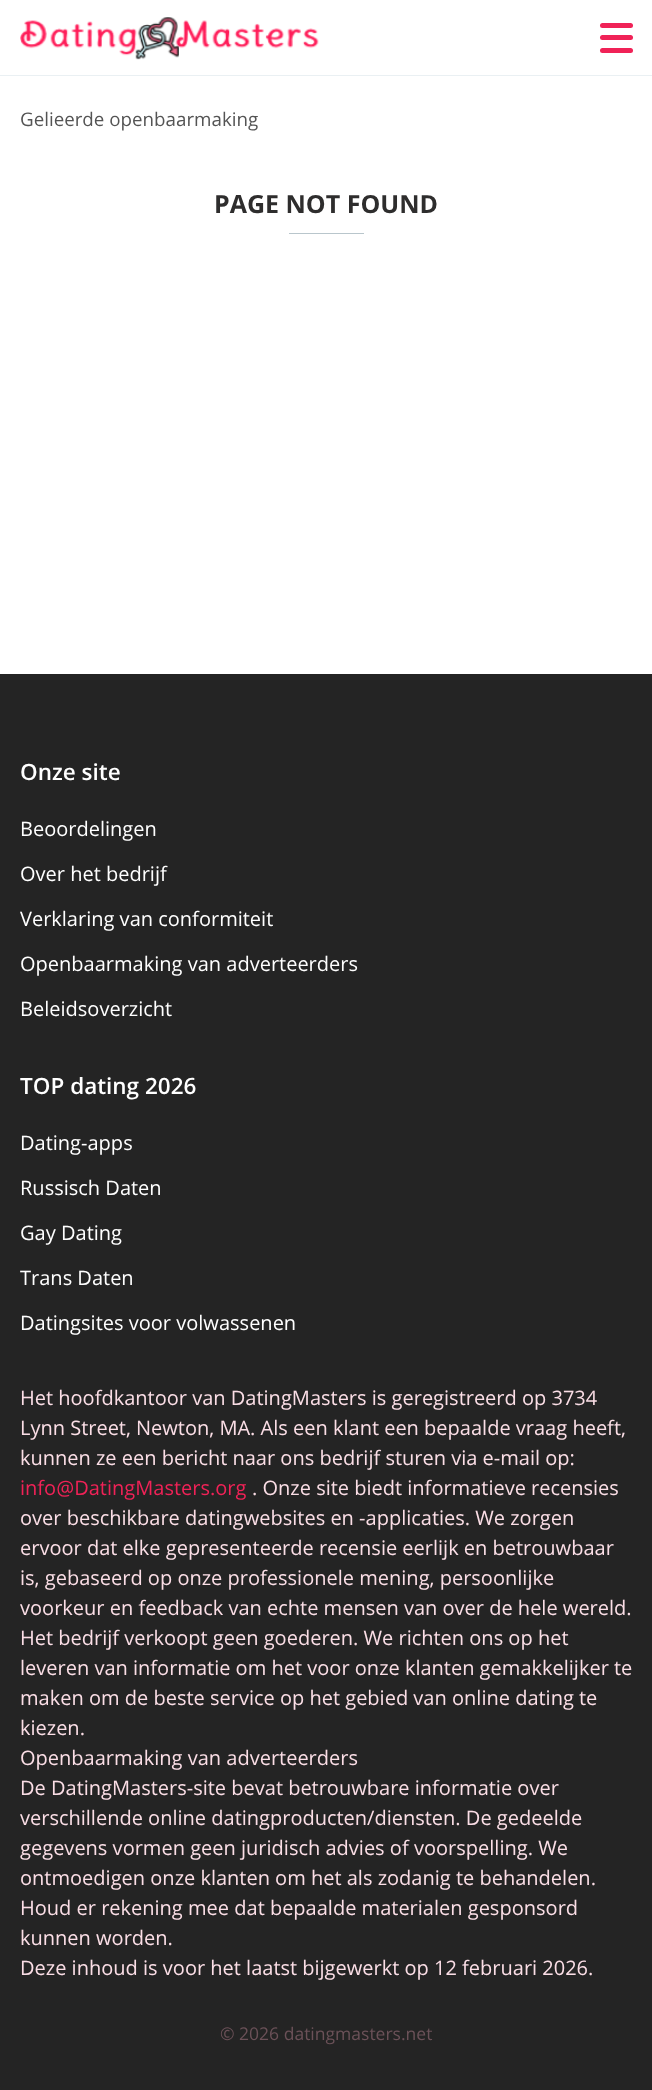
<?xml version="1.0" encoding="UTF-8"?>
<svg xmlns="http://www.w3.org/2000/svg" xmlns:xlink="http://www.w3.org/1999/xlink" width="652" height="2090">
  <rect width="100%" height="100%" fill="#ffffff" />
  <rect y="75" width="652" height="1" fill="#eaf0f3" />
  <image x="20" y="17" width="299" height="43" xlink:href="image1.png" />
  <rect x="600" y="23" width="33" height="5" rx="2.5" fill="#f02257" />
  <rect x="600" y="35" width="33" height="5" rx="2.5" fill="#f02257" />
  <rect x="600" y="48" width="33" height="5" rx="2.5" fill="#f02257" />
  <rect x="289" y="233" width="75" height="1" fill="#b9c6cc" />
  <rect y="674" width="652" height="1416" fill="#242424" />
  <text x="20" y="126" style="font-family: Open Sans; font-size: 18.75px; fill: #545454">Gelieerde openbaarmaking</text>
  <text x="214" y="213" style="font-family: Open Sans; font-size: 25px; font-weight: bold; fill: #2e2d2d">PAGE NOT FOUND</text>
  <text x="20" y="780" style="font-family: Open Sans; font-size: 22.5px; font-weight: 600; fill: #ffffff">Onze site</text>
  <text x="20" y="836" style="font-family: Open Sans; font-size: 20px; fill: #ffffff">Beoordelingen</text>
  <text x="20" y="881" style="font-family: Open Sans; font-size: 20px; fill: #ffffff">Over het bedrijf</text>
  <text x="20" y="926" style="font-family: Open Sans; font-size: 20px; fill: #ffffff">Verklaring van conformiteit</text>
  <text x="20" y="971" style="font-family: Open Sans; font-size: 20px; fill: #ffffff">Openbaarmaking van adverteerders</text>
  <text x="20" y="1016" style="font-family: Open Sans; font-size: 20px; fill: #ffffff">Beleidsoverzicht</text>
  <text x="20" y="1094" style="font-family: Open Sans; font-size: 22.5px; font-weight: 600; fill: #ffffff">TOP dating 2026</text>
  <text x="20" y="1150" style="font-family: Open Sans; font-size: 20px; fill: #ffffff">Dating-apps</text>
  <text x="20" y="1195" style="font-family: Open Sans; font-size: 20px; fill: #ffffff">Russisch Daten</text>
  <text x="20" y="1240" style="font-family: Open Sans; font-size: 20px; fill: #ffffff">Gay Dating</text>
  <text x="20" y="1285" style="font-family: Open Sans; font-size: 20px; fill: #ffffff">Trans Daten</text>
  <text x="20" y="1330" style="font-family: Open Sans; font-size: 20px; fill: #ffffff">Datingsites voor volwassenen</text>
  <text x="20" y="1405" style="font-family: Open Sans; font-size: 20px; fill: #fbdee6">Het hoofdkantoor van DatingMasters is geregistreerd op 3734</text>
  <text x="20" y="1435" style="font-family: Open Sans; font-size: 20px; fill: #fbdee6">Lynn Street, Newton, MA. Als een klant een bepaalde vraag heeft,</text>
  <text x="20" y="1465" style="font-family: Open Sans; font-size: 20px; fill: #fbdee6">kunnen ze een bericht naar ons bedrijf sturen via e-mail op:</text>
  <text x="20" y="1495" style="font-family: Open Sans; font-size: 20px; fill: #f02257">info@DatingMasters.org</text>
  <text x="252" y="1495" style="font-family: Open Sans; font-size: 20px; fill: #fbdee6">. Onze site biedt informatieve recensies</text>
  <text x="20" y="1525" style="font-family: Open Sans; font-size: 20px; fill: #fbdee6">over beschikbare datingwebsites en -applicaties. We zorgen</text>
  <text x="20" y="1555" style="font-family: Open Sans; font-size: 20px; fill: #fbdee6">ervoor dat elke gepresenteerde recensie eerlijk en betrouwbaar</text>
  <text x="20" y="1585" style="font-family: Open Sans; font-size: 20px; fill: #fbdee6">is, gebaseerd op onze professionele mening, persoonlijke</text>
  <text x="20" y="1615" style="font-family: Open Sans; font-size: 20px; fill: #fbdee6">voorkeur en feedback van echte mensen van over de hele wereld.</text>
  <text x="20" y="1645" style="font-family: Open Sans; font-size: 20px; fill: #fbdee6">Het bedrijf verkoopt geen goederen. We richten ons op het</text>
  <text x="20" y="1675" style="font-family: Open Sans; font-size: 20px; fill: #fbdee6">leveren van informatie om het voor onze klanten gemakkelijker te</text>
  <text x="20" y="1705" style="font-family: Open Sans; font-size: 20px; fill: #fbdee6">maken om de beste service op het gebied van online dating te</text>
  <text x="20" y="1735" style="font-family: Open Sans; font-size: 20px; fill: #fbdee6">kiezen.</text>
  <text x="20" y="1765" style="font-family: Open Sans; font-size: 20px; fill: #fbdee6">Openbaarmaking van adverteerders</text>
  <text x="20" y="1795" style="font-family: Open Sans; font-size: 20px; fill: #fbdee6">De DatingMasters-site bevat betrouwbare informatie over</text>
  <text x="20" y="1825" style="font-family: Open Sans; font-size: 20px; fill: #fbdee6">verschillende online datingproducten/diensten. De gedeelde</text>
  <text x="20" y="1855" style="font-family: Open Sans; font-size: 20px; fill: #fbdee6">gegevens vormen geen juridisch advies of voorspelling. We</text>
  <text x="20" y="1885" style="font-family: Open Sans; font-size: 20px; fill: #fbdee6">ontmoedigen onze klanten om het als zodanig te behandelen.</text>
  <text x="20" y="1915" style="font-family: Open Sans; font-size: 20px; fill: #fbdee6">Houd er rekening mee dat bepaalde materialen gesponsord</text>
  <text x="20" y="1945" style="font-family: Open Sans; font-size: 20px; fill: #fbdee6">kunnen worden.</text>
  <text x="20" y="1975" style="font-family: Open Sans; font-size: 20px; fill: #fbdee6">Deze inhoud is voor het laatst bijgewerkt op 12 februari 2026.</text>
  <text x="220" y="2040" style="font-family: Open Sans; font-size: 17.5px; fill: #6b5158">© 2026 datingmasters.net</text>
</svg>
